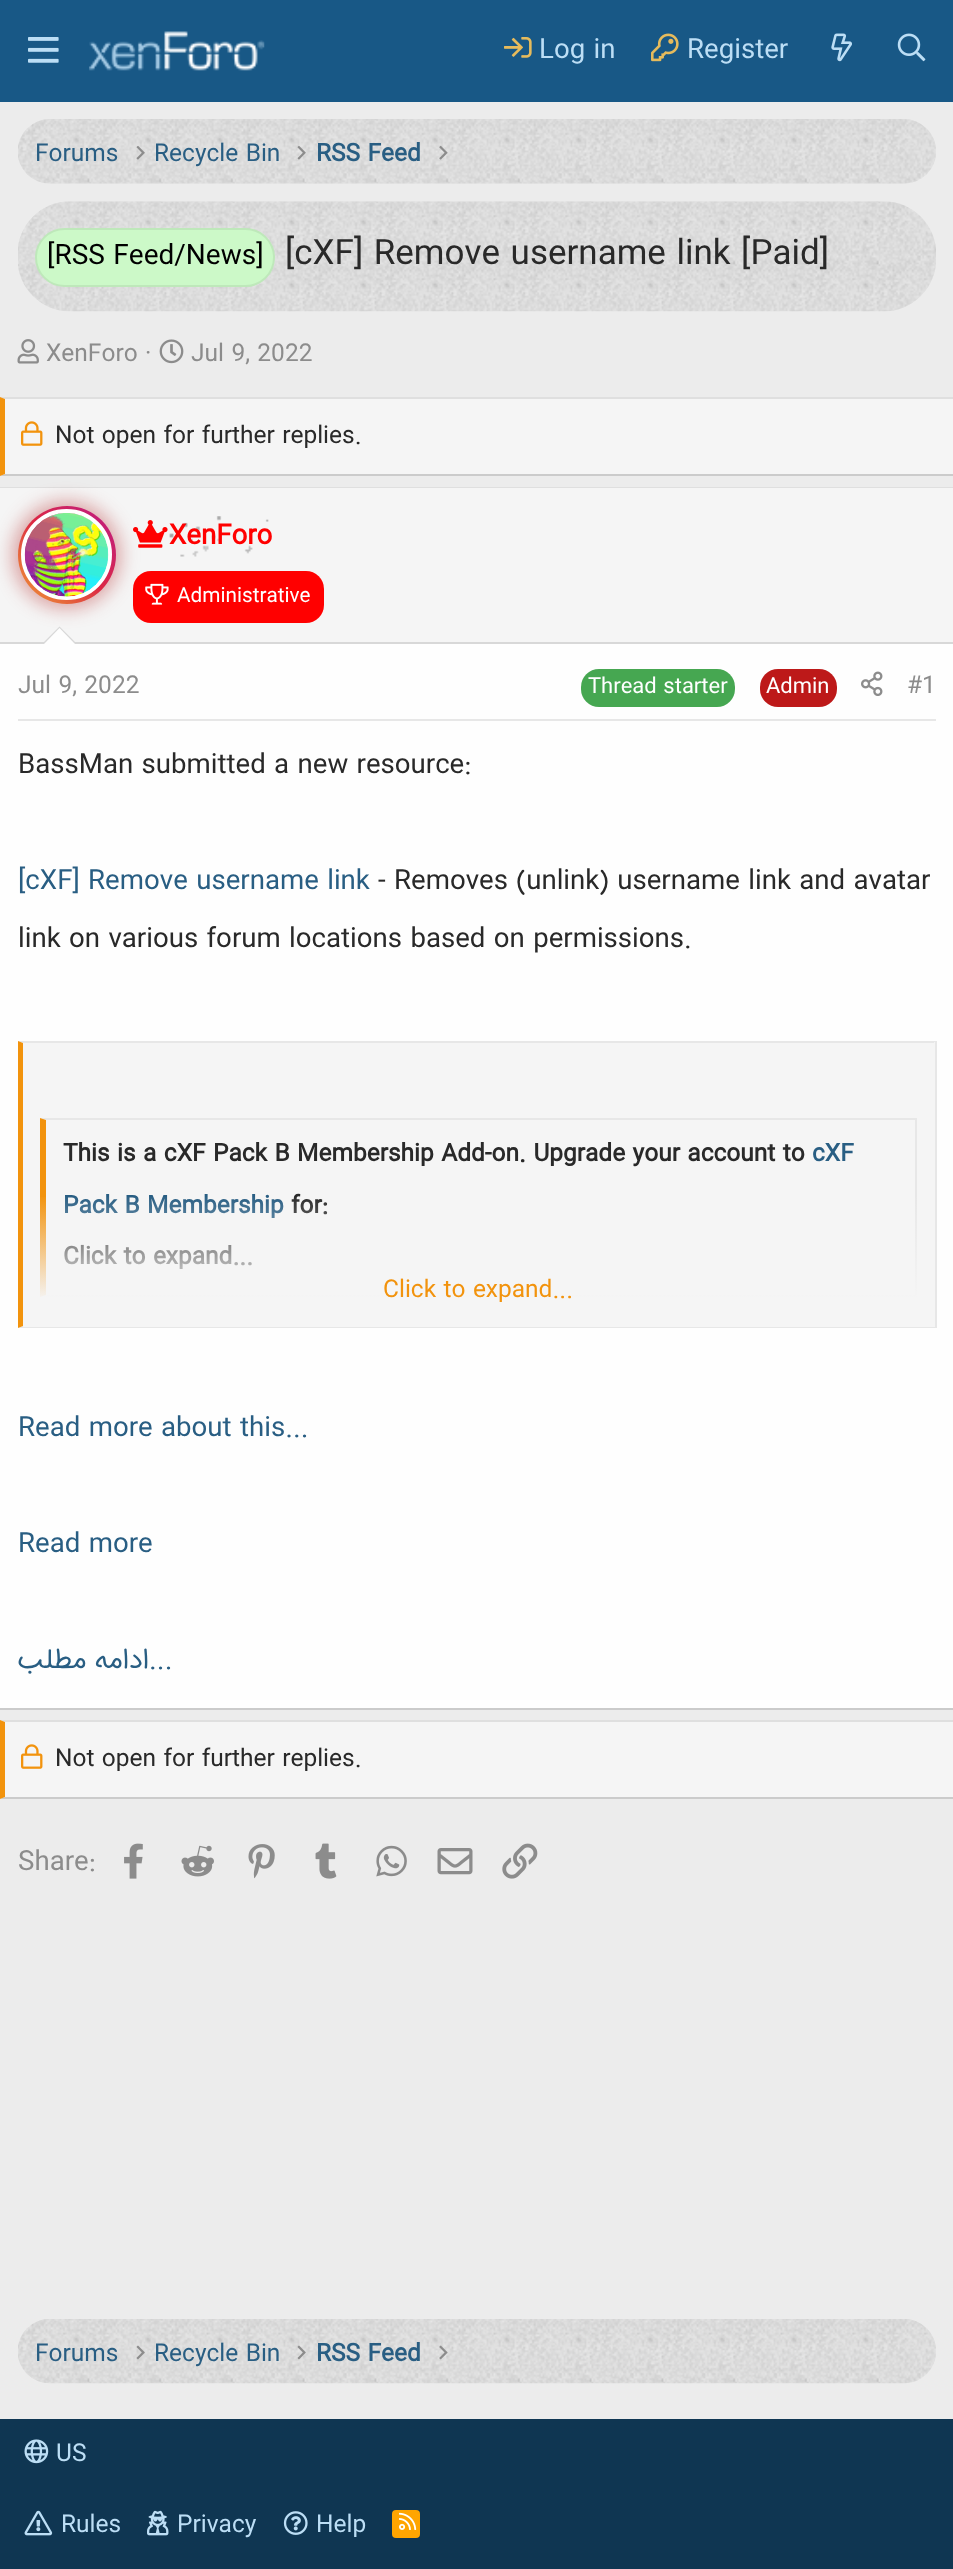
<?xml version="1.0" encoding="UTF-8"?>
<svg xmlns="http://www.w3.org/2000/svg" xmlns:xlink="http://www.w3.org/1999/xlink" width="953" height="2569">
  <defs>
    <linearGradient id="g1" gradientUnits="userSpaceOnUse" x1="18" y1="604" x2="116" y2="506"><stop offset="0" stop-color="#f09433" /><stop offset="0.25" stop-color="#e6683c" /><stop offset="0.5" stop-color="#dc2743" /><stop offset="0.75" stop-color="#cc2366" /><stop offset="1" stop-color="#bc1888" /></linearGradient>
    <linearGradient id="g2" gradientUnits="userSpaceOnUse" x1="479" y1="1195" x2="479" y2="1327"><stop offset="0" stop-color="#f5f5f5" stop-opacity="0" /><stop offset="0.8" stop-color="#f5f5f5" /></linearGradient>
  </defs>
  <rect width="100%" height="100%" fill="#ececec" />
  <rect width="953" height="102" fill="#185886" />
  <image x="28" y="37" width="31" height="26" xlink:href="image1.png" />
  <image x="89" y="31" width="176" height="40" xlink:href="image2.png" />
  <image x="504" y="37" width="28" height="21" xlink:href="image3.png" />
  <image x="651" y="33" width="28" height="29" xlink:href="image4.png" />
  <image x="831" y="33" width="21" height="29" xlink:href="image5.png" />
  <image x="897" y="33" width="29" height="29" xlink:href="image6.png" />
  <image x="18" y="119" width="918" height="65" xlink:href="image7.png" />
  <image x="136" y="146" width="9" height="14" xlink:href="image8.png" />
  <image x="297" y="146" width="9" height="14" xlink:href="image9.png" />
  <image x="439" y="145" width="9" height="15" xlink:href="image10.png" />
  <image x="18" y="201" width="918" height="111" xlink:href="image11.png" />
  <rect x="36" y="229" width="238" height="57" rx="28.5" fill="#ccf9c8" stroke="#bee8ba" stroke-width="2" />
  <image x="17" y="339" width="22" height="25" xlink:href="image12.png" />
  <image x="159" y="339" width="25" height="25" xlink:href="image13.png" />
  <rect y="397" width="953" height="79" fill="#f5f5f5" />
  <path d="M 0 397 h 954 v 2 h -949 z" fill="#dfdfdf" />
  <path d="M 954 476 h -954 l 5 -2 h 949 z" fill="#cbcbcb" />
  <path d="M 0 476 v -79 l 5 2 v 75 z" fill="#f2930d" />
  <image x="21" y="421" width="22" height="25" xlink:href="image14.png" />
  <rect y="644" width="953" height="1064" fill="#fefefe" />
  <rect y="487" width="953" height="1" fill="#dfdfdf" />
  <rect y="1708" width="953" height="2" fill="#cbcbcb" />
  <rect y="488" width="953" height="154" fill="#f5f5f5" />
  <rect y="642" width="953" height="2" fill="#d8d8d8" />
  <image x="133" y="520" width="35" height="28" xlink:href="image17.png" />
  <rect x="133" y="571" width="191" height="52" rx="18" fill="#ff0000" />
  <image x="145" y="583" width="24" height="22" xlink:href="image18.png" />
  <rect x="12" y="501" width="109" height="108" rx="54" fill="#b22222" fill-opacity="0.38" filter="blur(9px)" />
  <circle cx="67" cy="555" r="49" fill="url(#g1)" />
  <circle cx="66.5" cy="554.5" r="43.5" fill="none" stroke="#ffffff" stroke-width="4" />
  <circle cx="67" cy="555" r="42" fill="#fefefe" />
  <image x="24" y="513" width="85" height="84" xlink:href="image15.png" />
  <image x="169" y="516" width="100" height="41" xlink:href="image16.png" />
  <path d="M 77 644 h -35 l 17.5 -17.5 z" fill="#d8d8d8" />
  <path d="M 75 644 h -31 l 15.5 -16 z" fill="#fefefe" />
  <rect x="18" y="719" width="918" height="2" fill="#e7e7e7" />
  <rect x="581" y="669" width="154" height="38" rx="18" fill="#46a751" />
  <rect x="760" y="669" width="77" height="38" rx="18" fill="#bd1919" />
  <image x="861" y="671" width="22" height="25" xlink:href="image19.png" />
  <rect x="23" y="1043" width="912" height="257" fill="#f5f5f5" />
  <path d="M 18 1041 h 918 l -2 2 h -911 z" fill="#e7e7e7" />
  <rect x="935" y="1041" width="2" height="287" fill="#e7e7e7" />
  <path d="M 936 1328 h -918 l 5 -2 h 911 z" fill="#e7e7e7" />
  <path d="M 18 1328 v -287 l 5 2 v 283 z" fill="#f2930d" />
  <path d="M 40 1118 h 877 l -2 2 h -869 z" fill="#e7e7e7" />
  <rect x="915" y="1118" width="2" height="179" fill="#e7e7e7" />
  <path d="M 917 1297 h -877 l 6 -2 h 869 z" fill="#e7e7e7" />
  <path d="M 40 1297 v -179 l 6 2 v 175 z" fill="#f2930d" />
  <rect y="1720" width="953" height="79" fill="#f5f5f5" />
  <path d="M 0 1720 h 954 v 2 h -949 z" fill="#dfdfdf" />
  <path d="M 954 1799 h -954 l 5 -2 h 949 z" fill="#cbcbcb" />
  <path d="M 0 1799 v -79 l 5 2 v 75 z" fill="#f2930d" />
  <image x="21" y="1744" width="22" height="25" xlink:href="image14.png" />
  <image x="124" y="1843" width="19" height="36" xlink:href="image20.png" />
  <image x="181" y="1845" width="33" height="32" xlink:href="image21.png" />
  <image x="248" y="1844" width="27" height="35" xlink:href="image22.png" />
  <image x="315" y="1843" width="22" height="36" xlink:href="image23.png" />
  <image x="376" y="1845" width="31" height="32" xlink:href="image24.png" />
  <image x="437" y="1848" width="36" height="27" xlink:href="image25.png" />
  <image x="502" y="1843" width="36" height="36" xlink:href="image26.png" />
  <image x="18" y="2319" width="918" height="65" xlink:href="image27.png" />
  <image x="136" y="2345" width="9" height="15" xlink:href="image28.png" />
  <image x="297" y="2345" width="9" height="15" xlink:href="image29.png" />
  <image x="439" y="2345" width="9" height="15" xlink:href="image30.png" />
  <rect y="2419" width="953" height="150" fill="#0f3652" />
  <image x="24" y="2439" width="25" height="25" xlink:href="image31.png" />
  <image x="24" y="2510" width="29" height="26" xlink:href="image32.png" />
  <image x="147" y="2510" width="22" height="26" xlink:href="image33.png" />
  <image x="283" y="2511" width="25" height="24" xlink:href="image34.png" />
  <rect x="392" y="2510" width="28" height="28" rx="4" fill="#ffa500" />
  <image x="399" y="2512" width="18" height="18" xlink:href="image35.png" />
  <text x="539" y="58" style="font-family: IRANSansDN; font-size: 27.65px; fill: #bcdef5">Log in</text>
  <text x="687" y="58" style="font-family: IRANSansDN; font-size: 27.65px; fill: #bcdef5">Register</text>
  <text x="35" y="161" style="font-family: IRANSansDN; font-size: 24.5px; fill: #295e83">Forums</text>
  <text x="154" y="161" style="font-family: IRANSansDN; font-size: 24.5px; fill: #295e83">Recycle Bin</text>
  <text x="316" y="161" style="font-family: IRANSansDN; font-size: 24.5px; font-weight: bold; fill: #295e83">RSS Feed</text>
  <text x="47" y="264" style="font-family: IRANSansDN; font-size: 28px; fill: #000000">[RSS Feed/News]</text>
  <text x="285" y="264" style="font-family: IRANSansDN; font-size: 35px; fill: #292929">[cXF] Remove username link [Paid]</text>
  <text x="46" y="361" style="font-family: IRANSansDN; font-size: 24.5px; fill: #8c8c8c">XenForo ·</text>
  <text x="191" y="361" style="font-family: IRANSansDN; font-size: 24.5px; fill: #8c8c8c">Jul 9, 2022</text>
  <text x="55" y="443" style="font-family: IRANSansDN; font-size: 24.5px; fill: #292929">Not open for further replies.</text>
  <text x="169" y="544" style="font-family: IRANSansDN; font-size: 27.65px; font-weight: bold; fill: #ff0000">XenForo</text>
  <text x="177" y="602" style="font-family: IRANSansDN; font-size: 20.75px; fill: #ffffff">Administrative</text>
  <text x="18" y="693" style="font-family: IRANSansDN; font-size: 24.5px; fill: #8c8c8c">Jul 9, 2022</text>
  <text x="588" y="693" style="font-family: IRANSansDN; font-size: 22px; fill: #ffffff">Thread starter</text>
  <text x="766" y="693" style="font-family: IRANSansDN; font-size: 22px; fill: #ffffff">Admin</text>
  <text x="907" y="693" style="font-family: IRANSansDN; font-size: 24.5px; fill: #8c8c8c">#1</text>
  <text x="18" y="773" style="font-family: IRANSansDN; font-size: 27.65px; fill: #292929">BassMan submitted a new resource:</text>
  <text x="18" y="889" style="font-family: IRANSansDN; font-size: 27.65px; fill: #295e83">[cXF] Remove username link</text>
  <text x="378" y="889" style="font-family: IRANSansDN; font-size: 27.65px; fill: #292929">- Removes (unlink) username link and avatar</text>
  <text x="18" y="947" style="font-family: IRANSansDN; font-size: 27.65px; fill: #292929">link on various forum locations based on permissions.</text>
  <text x="63" y="1161" style="font-family: IRANSansDN; font-size: 24.5px; font-weight: bold; fill: #292929">This is a cXF Pack B Membership Add-on. Upgrade your account to</text>
  <text x="812" y="1161" style="font-family: IRANSansDN; font-size: 24.5px; font-weight: bold; fill: #295e83">cXF</text>
  <text x="63" y="1213" style="font-family: IRANSansDN; font-size: 24.5px; font-weight: bold; fill: #295e83">Pack B Membership</text>
  <text x="291" y="1213" style="font-family: IRANSansDN; font-size: 24.5px; font-weight: bold; fill: #292929">for:</text>
  <text x="63" y="1264" style="font-family: IRANSansDN; font-size: 24.5px; font-weight: bold; fill: #292929">Click to expand...</text>
  <rect x="23" y="1197" width="912" height="130" fill="url(#g2)" />
  <text x="383" y="1297" style="font-family: IRANSansDN; font-size: 24.5px; fill: #f2930d">Click to expand...</text>
  <text x="18" y="1436" style="font-family: IRANSansDN; font-size: 27.65px; fill: #295e83">Read more about this...</text>
  <text x="18" y="1552" style="font-family: IRANSansDN; font-size: 27.65px; fill: #295e83">Read more</text>
  <text x="149" y="1668" style="font-family: IRANSansDN; font-size: 27.65px; direction: rtl; fill: #295e83">ادامه مطلب</text>
  <text x="149" y="1668" style="font-family: IRANSansDN; font-size: 27.65px; fill: #295e83">...</text>
  <text x="55" y="1766" style="font-family: IRANSansDN; font-size: 24.5px; fill: #292929">Not open for further replies.</text>
  <text x="18" y="1870" style="font-family: IRANSansDN; font-size: 27.65px; fill: #8c8c8c">Share:</text>
  <text x="35" y="2361" style="font-family: IRANSansDN; font-size: 24.5px; fill: #295e83">Forums</text>
  <text x="154" y="2361" style="font-family: IRANSansDN; font-size: 24.5px; fill: #295e83">Recycle Bin</text>
  <text x="316" y="2361" style="font-family: IRANSansDN; font-size: 24.5px; font-weight: bold; fill: #295e83">RSS Feed</text>
  <text x="56" y="2461" style="font-family: IRANSansDN; font-size: 24.5px; fill: #bcdef5">US</text>
  <text x="61" y="2532" style="font-family: IRANSansDN; font-size: 24.5px; fill: #bcdef5">Rules</text>
  <text x="177" y="2532" style="font-family: IRANSansDN; font-size: 24.5px; fill: #bcdef5">Privacy</text>
  <text x="316" y="2532" style="font-family: IRANSansDN; font-size: 24.5px; fill: #bcdef5">Help</text>
</svg>
